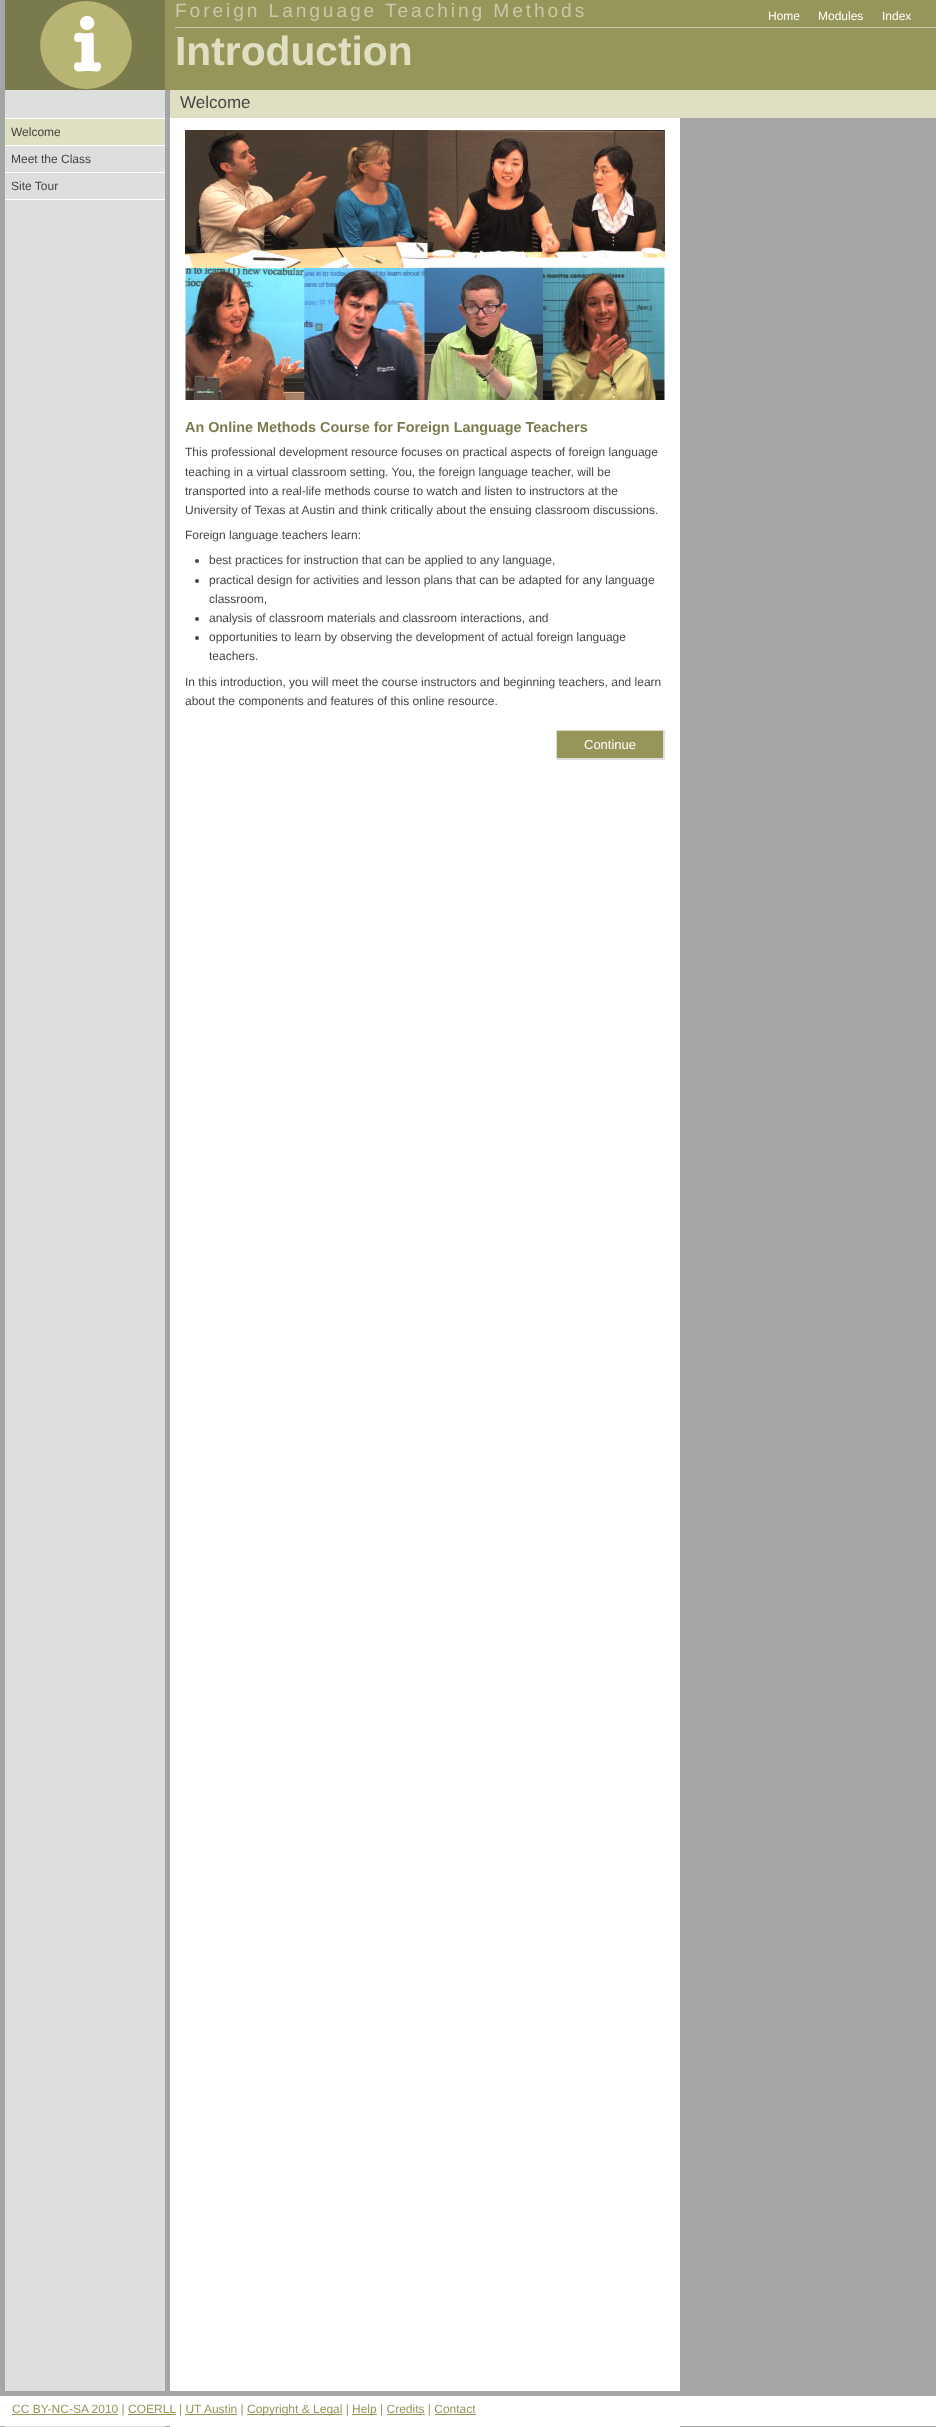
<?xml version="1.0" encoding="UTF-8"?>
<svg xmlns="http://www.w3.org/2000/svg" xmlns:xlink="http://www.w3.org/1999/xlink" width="936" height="2427">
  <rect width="100%" height="100%" fill="#a4a6a6" />
  <image x="5" y="90" width="675" height="2337" xlink:href="image1.png" />
  <rect x="165" width="771" height="90" fill="#96955a" />
  <image x="0" y="0" width="165" height="90" xlink:href="image2.png" />
  <rect x="175" y="27" width="761" height="1" fill="#cac9aa" />
  <rect x="170" y="90" width="766" height="28" fill="#dfe0c1" />
  <rect x="5" y="118" width="160" height="1" fill="#ffffff" />
  <rect x="5" y="119" width="160" height="26" fill="#dfe0c1" />
  <rect x="5" y="145" width="160" height="1" fill="#ffffff" />
  <rect x="5" y="172" width="160" height="1" fill="#ffffff" />
  <rect x="5" y="199" width="160" height="1" fill="#ffffff" />
  <image x="185" y="130" width="480" height="270" xlink:href="image3.png" />
  <circle cx="197" cy="561" r="2" fill="#4b4646" />
  <circle cx="197" cy="581" r="2" fill="#4b4646" />
  <circle cx="197" cy="619" r="2" fill="#4b4646" />
  <circle cx="197" cy="638" r="2" fill="#4b4646" />
  <rect x="557" y="731" width="106" height="27" fill="#96955a" />
  <path d="M 556 730 h 109 l -2 1 h -106 z" fill="#dfe0c1" />
  <path d="M 665 730 v 30 l -2 -2 v -27 z" fill="#dddfde" />
  <path d="M 665 760 h -109 l 1 -2 h 106 z" fill="#dddfde" />
  <path d="M 556 760 v -30 l 1 1 v 27 z" fill="#dfe0c1" />
  <rect y="2396" width="936" height="30" fill="#ffffff" />
  <rect y="2391" width="680" height="5" fill="#a4a6a6" />
  <rect x="12" y="2414" width="106" height="1" fill="#96955a" />
  <rect x="247" y="2414" width="95" height="1" fill="#96955a" />
  <rect x="352" y="2414" width="25" height="1" fill="#96955a" />
  <rect x="128" y="2414" width="48" height="1" fill="#96955a" />
  <rect x="185" y="2414" width="52" height="1" fill="#96955a" />
  <rect x="387" y="2414" width="38" height="1" fill="#96955a" />
  <rect x="435" y="2414" width="41" height="1" fill="#96955a" />
  <text x="175" y="17" style="font-family: Liberation Sans; font-size: 19.2px; letter-spacing: 2.9px; fill: #cac9aa">Foreign Language Teaching Methods</text>
  <text x="768" y="20" style="font-family: Liberation Sans; font-size: 12px; fill: #ffffff">Home</text>
  <text x="818" y="20" style="font-family: Liberation Sans; font-size: 12px; fill: #ffffff">Modules</text>
  <text x="882" y="20" style="font-family: Liberation Sans; font-size: 12px; fill: #ffffff">Index</text>
  <text x="175" y="65" style="font-family: Liberation Sans; font-size: 40.75px; font-weight: bold; fill: #dfe0c1">Introduction</text>
  <text x="180" y="108" style="font-family: Liberation Sans; font-size: 17px; fill: #4b4646">Welcome</text>
  <text x="11" y="136" style="font-family: Liberation Sans; font-size: 12px; fill: #46423d">Welcome</text>
  <text x="11" y="163" style="font-family: Liberation Sans; font-size: 12px; fill: #46423d">Meet the Class</text>
  <text x="11" y="190" style="font-family: Liberation Sans; font-size: 12px; fill: #46423d">Site Tour</text>
  <text x="185" y="432" style="font-family: Liberation Sans; font-size: 14.4px; font-weight: bold; fill: #7a7b4c">An Online Methods Course for Foreign Language Teachers</text>
  <text x="185" y="456" style="font-family: Liberation Sans; font-size: 12px; fill: #4b4646">This professional development resource focuses on practical aspects of foreign language</text>
  <text x="185" y="476" style="font-family: Liberation Sans; font-size: 12px; fill: #4b4646">teaching in a virtual classroom setting. You, the foreign language teacher, will be</text>
  <text x="185" y="495" style="font-family: Liberation Sans; font-size: 12px; fill: #4b4646">transported into a real-life methods course to watch and listen to instructors at the</text>
  <text x="185" y="514" style="font-family: Liberation Sans; font-size: 12px; fill: #4b4646">University of Texas at Austin and think critically about the ensuing classroom discussions.</text>
  <text x="185" y="539" style="font-family: Liberation Sans; font-size: 12px; fill: #4b4646">Foreign language teachers learn:</text>
  <text x="209" y="564" style="font-family: Liberation Sans; font-size: 12px; fill: #4b4646">best practices for instruction that can be applied to any language,</text>
  <text x="209" y="584" style="font-family: Liberation Sans; font-size: 12px; fill: #4b4646">practical design for activities and lesson plans that can be adapted for any language</text>
  <text x="209" y="603" style="font-family: Liberation Sans; font-size: 12px; fill: #4b4646">classroom,</text>
  <text x="209" y="622" style="font-family: Liberation Sans; font-size: 12px; fill: #4b4646">analysis of classroom materials and classroom interactions, and</text>
  <text x="209" y="641" style="font-family: Liberation Sans; font-size: 12px; fill: #4b4646">opportunities to learn by observing the development of actual foreign language</text>
  <text x="209" y="660" style="font-family: Liberation Sans; font-size: 12px; fill: #4b4646">teachers.</text>
  <text x="185" y="686" style="font-family: Liberation Sans; font-size: 12px; fill: #4b4646">In this introduction, you will meet the course instructors and beginning teachers, and learn</text>
  <text x="185" y="705" style="font-family: Liberation Sans; font-size: 12px; fill: #4b4646">about the components and features of this online resource.</text>
  <text x="584" y="749" style="font-family: Liberation Sans; font-size: 13px; fill: #ffffff">Continue</text>
  <text x="12" y="2413" style="font-family: Liberation Sans; font-size: 12px; fill: #96955a">CC BY-NC-SA 2010 | COERLL</text>
  <text x="179" y="2413" style="font-family: Liberation Sans; font-size: 12px; fill: #96955a">| UT Austin |</text>
  <text x="247" y="2413" style="font-family: Liberation Sans; font-size: 12px; fill: #96955a">Copyright &amp; Legal |</text>
  <text x="352" y="2413" style="font-family: Liberation Sans; font-size: 12px; fill: #96955a">Help | Credits | Contact</text>
</svg>
